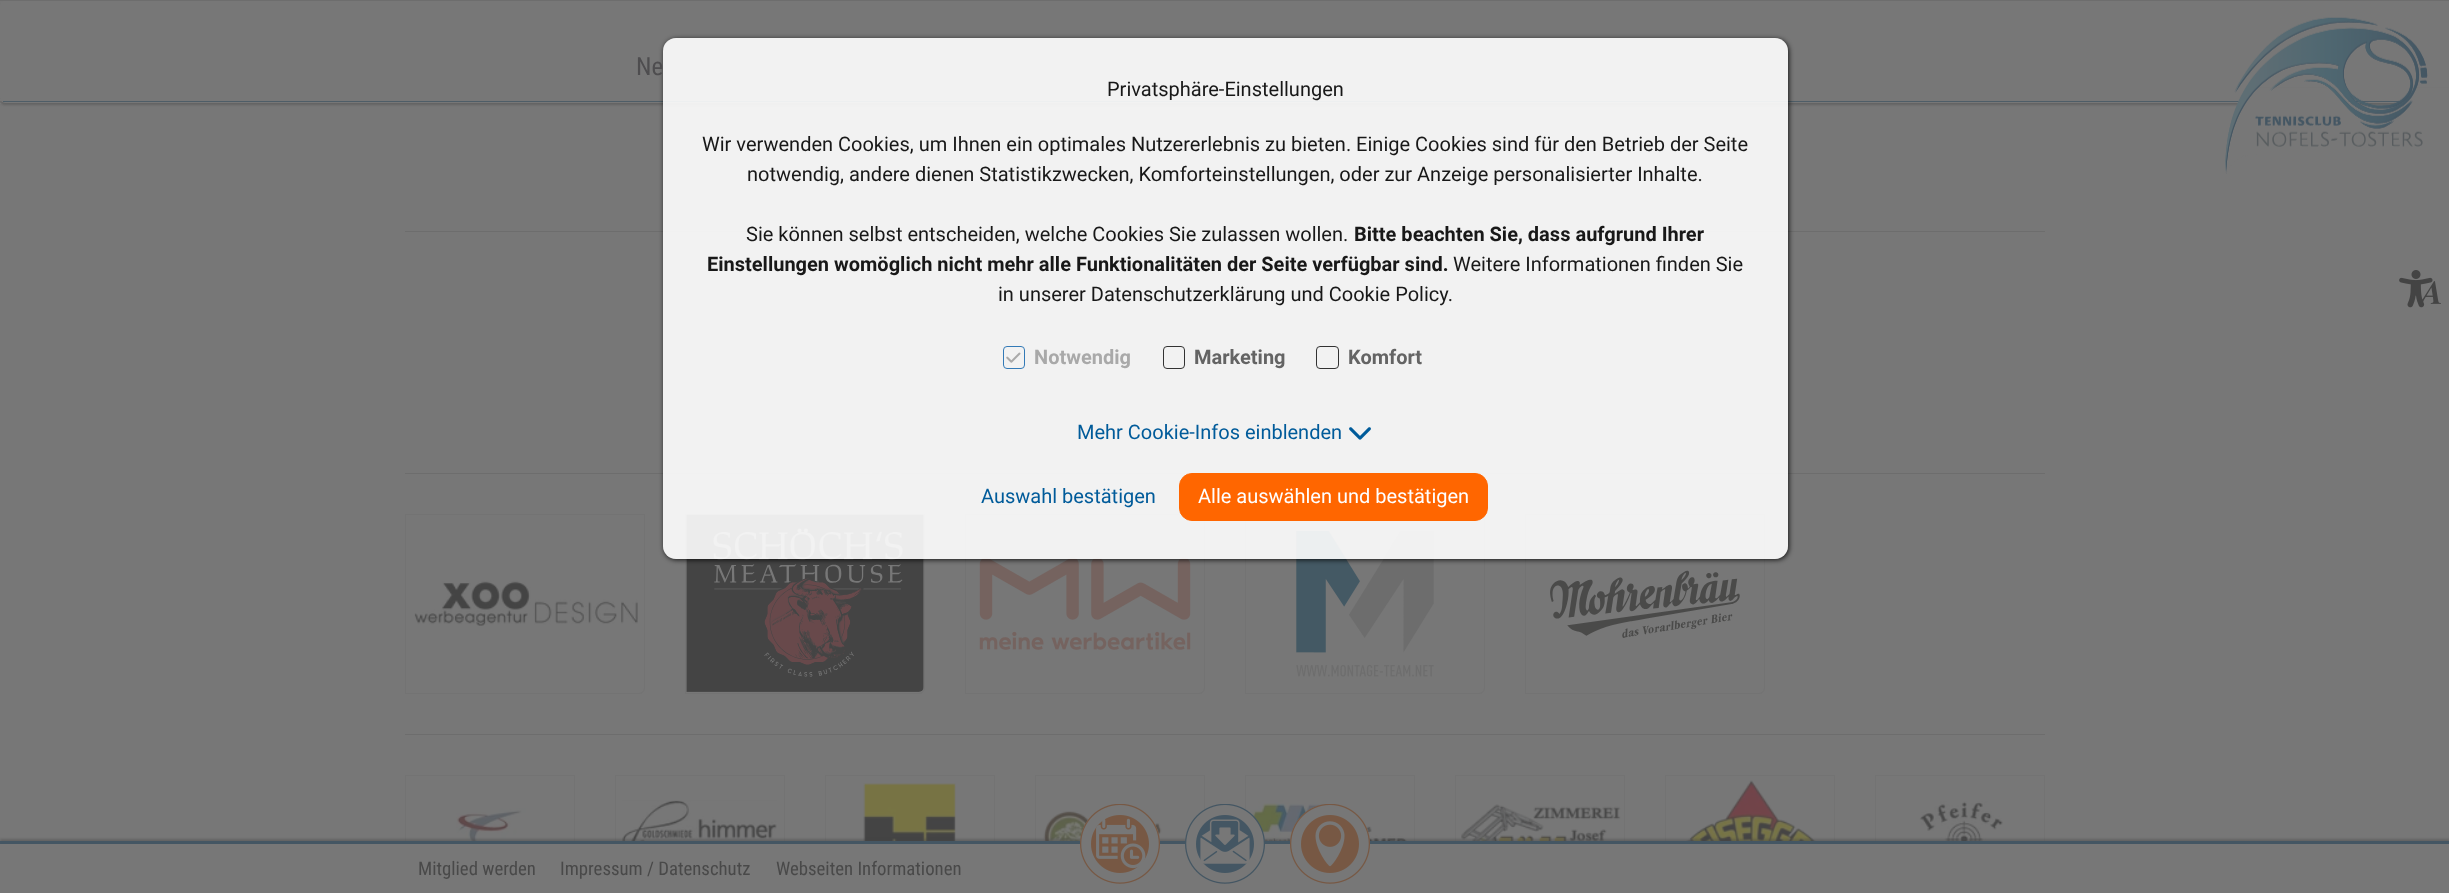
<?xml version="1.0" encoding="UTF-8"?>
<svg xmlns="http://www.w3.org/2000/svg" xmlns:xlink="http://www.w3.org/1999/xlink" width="2449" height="893">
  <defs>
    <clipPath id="clip1"><path d="M 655 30 h 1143 v 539 h -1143 z m 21 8 h 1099 c 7 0 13 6 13 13 v 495 c 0 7 -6 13 -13 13 h -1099 c -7 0 -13 -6 -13 -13 v -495 c 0 -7 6 -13 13 -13 z" clip-rule="evenodd" /></clipPath>
  </defs>
  <rect width="100%" height="100%" fill="#777777" />
  <rect y="3" width="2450" height="102" rx="5" fill="#444444" fill-opacity="0.4" filter="blur(1px)" />
  <rect y="103" width="1" height="1" fill="#777777" />
  <rect width="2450" height="103" rx="5" fill="#777777" />
  <rect x="3" y="101" width="2401" height="1" fill="#4e5d67" />
  <rect y="99" width="1" height="2" fill="#777777" />
  <rect width="2449" height="1" fill="#6d6d6d" />
  <image x="2225" y="17" width="224" height="157" xlink:href="image1.png" />
  <rect x="405" y="231" width="1640" height="1" fill="#6d6d6d" />
  <rect x="405" y="473" width="1640" height="1" fill="#6d6d6d" />
  <path d="M 405.5 514.5 h 239 v 173.5 c 0 3 -2.5 5.5 -5.5 5.5 h -233.5 z" fill="none" stroke="#737373" />
  <image x="414" y="580" width="224" height="46" xlink:href="image2.png" />
  <path d="M 685.5 514.5 h 239 v 173.5 c 0 3 -2.5 5.5 -5.5 5.5 h -233.5 z" fill="none" stroke="#737373" />
  <image x="686" y="514" width="238" height="178" xlink:href="image3.png" />
  <path d="M 965.5 514.5 h 239 v 173.5 c 0 3 -2.5 5.5 -5.5 5.5 h -233.5 z" fill="none" stroke="#737373" />
  <image x="979" y="557" width="212" height="93" xlink:href="image4.png" />
  <path d="M 1245.5 514.5 h 239 v 173.5 c 0 3 -2.5 5.5 -5.5 5.5 h -233.5 z" fill="none" stroke="#737373" />
  <image x="1296" y="531" width="138" height="146" xlink:href="image5.png" />
  <path d="M 1525.5 514.5 h 239 v 173.5 c 0 3 -2.5 5.5 -5.5 5.5 h -233.5 z" fill="none" stroke="#737373" />
  <image x="1550" y="570" width="190" height="68" xlink:href="image6.png" />
  <rect x="405" y="734" width="1640" height="1" fill="#6d6d6d" />
  <rect x="405.5" y="775.5" width="169" height="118" fill="none" stroke="#737373" />
  <image x="451" y="808" width="80" height="33" xlink:href="image7.png" />
  <rect x="615.5" y="775.5" width="169" height="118" fill="none" stroke="#737373" />
  <image x="622" y="800" width="155" height="41" xlink:href="image8.png" />
  <rect x="825.5" y="775.5" width="169" height="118" fill="none" stroke="#737373" />
  <image x="863" y="783" width="93" height="58" xlink:href="image9.png" />
  <rect x="1035.5" y="775.5" width="169" height="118" fill="none" stroke="#737373" />
  <image x="1043" y="811" width="119" height="30" xlink:href="image10.png" />
  <rect x="1245.5" y="775.5" width="169" height="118" fill="none" stroke="#737373" />
  <image x="1249" y="800" width="159" height="41" xlink:href="image11.png" />
  <rect x="1455.5" y="775.5" width="169" height="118" fill="none" stroke="#737373" />
  <image x="1461" y="804" width="160" height="37" xlink:href="image12.png" />
  <rect x="1665.5" y="775.5" width="169" height="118" fill="none" stroke="#737373" />
  <image x="1686" y="780" width="130" height="61" xlink:href="image13.png" />
  <rect x="1875.5" y="775.5" width="169" height="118" fill="none" stroke="#737373" />
  <image x="1919" y="801" width="84" height="40" xlink:href="image14.png" />
  <image x="2399" y="270" width="42" height="38" xlink:href="image15.png" />
  <rect y="839" width="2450" height="52" fill="#444444" fill-opacity="0.4" filter="blur(1px)" />
  <rect y="844" width="2449" height="49" fill="#777777" />
  <rect y="841" width="2449" height="3" fill="#445663" />
  <image x="1080" y="804" width="80" height="80" xlink:href="image16.png" />
  <image x="1185" y="804" width="80" height="80" xlink:href="image17.png" />
  <image x="1290" y="804" width="80" height="80" xlink:href="image18.png" />
  <g clip-path="url(#clip1)">
    <rect x="664" y="39" width="1125" height="521" rx="13" fill="#000000" fill-opacity="0.8" filter="blur(2.5px)" />
  </g>
  <rect x="663" y="38" width="1125" height="521" rx="13" fill="#ffffff" fill-opacity="0.9" />
  <rect x="1003.5" y="346.5" width="21" height="22" rx="3.5" fill="none" stroke="#337ab7" />
  <image x="1006" y="352" width="15" height="11" xlink:href="image19.png" />
  <rect x="1163.5" y="346.5" width="21" height="22" rx="3.5" fill="none" stroke="#333333" />
  <rect x="1316.5" y="346.5" width="22" height="22" rx="3.5" fill="none" stroke="#333333" />
  <image x="1349" y="427" width="22" height="13" xlink:href="image20.png" />
  <rect x="1179.5" y="473.5" width="308" height="47" rx="12.5" fill="#ff6600" stroke="#ff6600" />
  <text x="636" y="75" style="font-family: Roboto Condensed; font-size: 25px; fill: #4e4d4f">Ne</text>
  <text x="418" y="875" style="font-family: Roboto Condensed; font-size: 18.75px; fill: #494949">Mitglied werden</text>
  <text x="560" y="875" style="font-family: Roboto Condensed; font-size: 18.75px; fill: #494949">Impressum / Datenschutz</text>
  <text x="776" y="875" style="font-family: Roboto Condensed; font-size: 18.75px; fill: #494949">Webseiten Informationen</text>
  <text x="1107" y="96" style="font-family: Roboto; font-size: 20px; fill: #181818">Privatsphäre-Einstellungen</text>
  <text x="702" y="151" style="font-family: Roboto; font-size: 20px; fill: #181818">Wir verwenden Cookies, um Ihnen ein optimales Nutzererlebnis zu bieten. Einige Cookies sind für den Betrieb der Seite</text>
  <text x="747" y="181" style="font-family: Roboto; font-size: 20px; fill: #181818">notwendig, andere dienen Statistikzwecken, Komforteinstellungen, oder zur Anzeige personalisierter Inhalte.</text>
  <text x="746" y="241" style="font-family: Roboto; font-size: 20px; fill: #181818">Sie können selbst entscheiden, welche Cookies Sie zulassen wollen.</text>
  <text x="1354" y="241" style="font-family: Roboto; font-size: 20px; font-weight: bold; fill: #181818">Bitte beachten Sie, dass aufgrund Ihrer</text>
  <text x="707" y="271" style="font-family: Roboto; font-size: 20px; font-weight: bold; fill: #181818">Einstellungen womöglich nicht mehr alle Funktionalitäten der Seite verfügbar sind.</text>
  <text x="1453" y="271" style="font-family: Roboto; font-size: 20px; fill: #181818">Weitere Informationen finden Sie</text>
  <text x="998" y="301" style="font-family: Roboto; font-size: 20px; fill: #181818">in unserer Datenschutzerklärung und Cookie Policy.</text>
  <text x="1034" y="364" style="font-family: Roboto; font-size: 20px; font-weight: bold; fill: #a9a9a9">Notwendig</text>
  <text x="1194" y="364" style="font-family: Roboto; font-size: 20px; font-weight: bold; fill: #646464">Marketing</text>
  <text x="1348" y="364" style="font-family: Roboto; font-size: 20px; font-weight: bold; fill: #646464">Komfort</text>
  <text x="1077" y="439" style="font-family: Roboto; font-size: 20px; fill: #005b9a">Mehr Cookie-Infos einblenden</text>
  <text x="981" y="503" style="font-family: Roboto; font-size: 20px; fill: #005b9a">Auswahl bestätigen</text>
  <text x="1198" y="503" style="font-family: Roboto; font-size: 20px; fill: #ffffff">Alle auswählen und bestätigen</text>
</svg>
